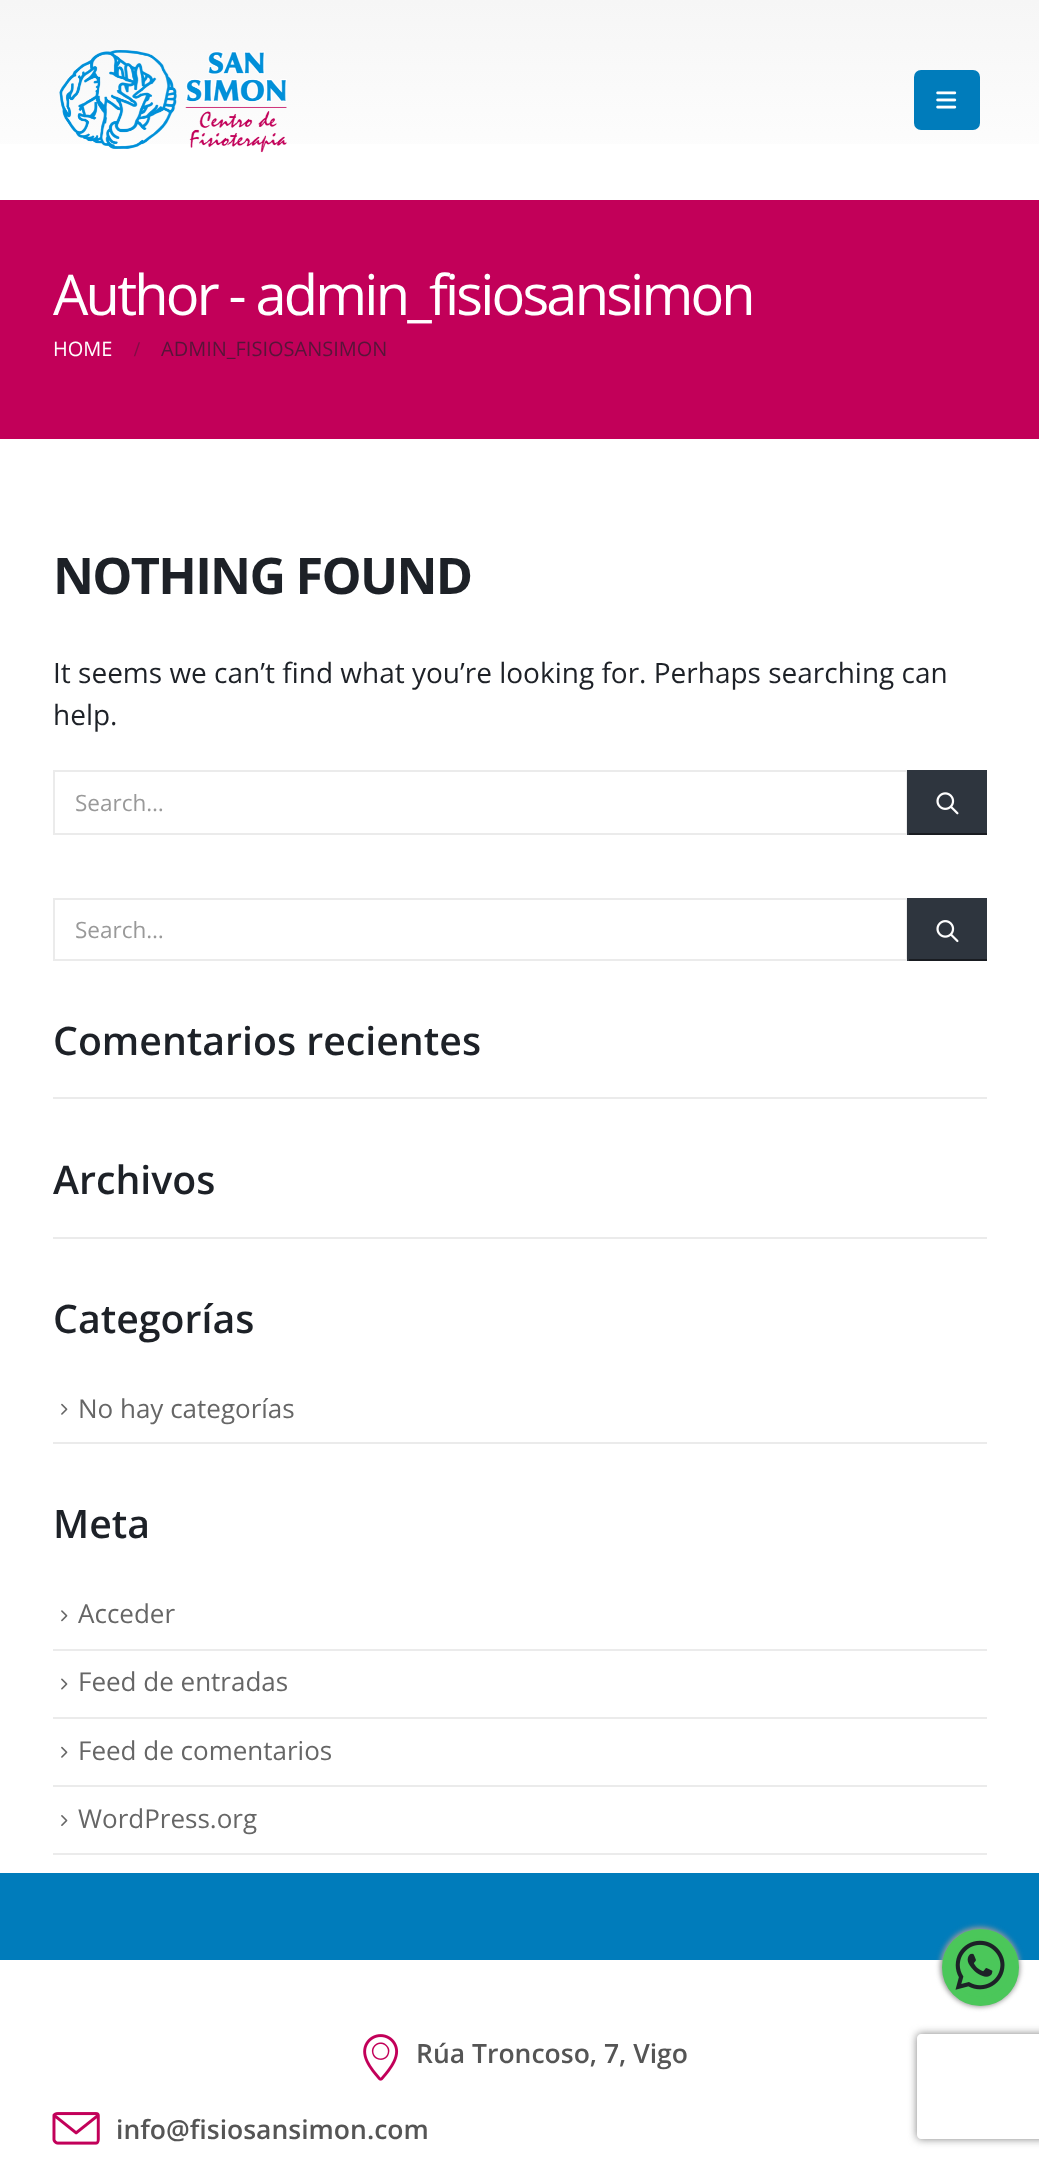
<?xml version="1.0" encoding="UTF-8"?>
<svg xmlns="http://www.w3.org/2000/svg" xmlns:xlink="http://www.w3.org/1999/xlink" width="1039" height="2162">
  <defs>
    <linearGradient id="g1" gradientUnits="userSpaceOnUse" x1="520" y1="0" x2="520" y2="200"><stop offset="0" stop-color="#f6f6f6" /><stop offset="1" stop-color="#ffffff" /></linearGradient>
    <clipPath id="clip1"><path d="M 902 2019 h 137 v 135 h -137 z m 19 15 h 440 c 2 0 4 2 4 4 v 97 c 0 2 -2 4 -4 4 h -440 c -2 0 -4 -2 -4 -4 v -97 c 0 -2 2 -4 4 -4 z" clip-rule="evenodd" /></clipPath>
  </defs>
  <rect width="100%" height="100%" fill="#ffffff" />
  <rect width="1039" height="144" fill="url(#g1)" />
  <image x="59" y="50" width="228" height="103" xlink:href="image1.png" />
  <rect x="914" y="70" width="66" height="60" rx="7" fill="#007cbb" />
  <image x="936" y="91" width="21" height="18" xlink:href="image2.png" />
  <rect y="200" width="1039" height="239" fill="#c20059" />
  <rect x="54" y="771" width="853" height="63" fill="none" stroke="#ebebeb" stroke-width="2" />
  <rect x="909" y="770" width="78" height="63" fill="#2e353e" />
  <rect x="907" y="833" width="80" height="2" fill="#191c21" />
  <rect x="907" y="770" width="2" height="65" fill="#2e353e" />
  <image x="936" y="792" width="23" height="23" xlink:href="image3.png" />
  <rect x="54" y="899" width="853" height="61" fill="none" stroke="#ebebeb" stroke-width="2" />
  <rect x="909" y="898" width="78" height="61" fill="#2e353e" />
  <rect x="907" y="959" width="80" height="2" fill="#191c21" />
  <rect x="907" y="898" width="2" height="63" fill="#2e353e" />
  <image x="936" y="920" width="23" height="23" xlink:href="image4.png" />
  <rect x="53" y="1097" width="934" height="2" fill="#ebebeb" />
  <rect x="53" y="1237" width="934" height="2" fill="#ebebeb" />
  <rect x="53" y="1442" width="934" height="2" fill="#ebebeb" />
  <image x="61" y="1403" width="7" height="12" xlink:href="image5.png" />
  <rect x="53" y="1853" width="934" height="2" fill="#ebebeb" />
  <image x="61" y="1610" width="7" height="12" xlink:href="image6.png" />
  <rect x="53" y="1649" width="934" height="2" fill="#ebebeb" />
  <image x="61" y="1678" width="7" height="12" xlink:href="image7.png" />
  <rect x="53" y="1717" width="934" height="2" fill="#ebebeb" />
  <image x="61" y="1746" width="7" height="12" xlink:href="image5.png" />
  <rect x="53" y="1785" width="934" height="2" fill="#ebebeb" />
  <image x="61" y="1815" width="7" height="11" xlink:href="image8.png" />
  <rect y="1873" width="1039" height="87" fill="#007cbb" />
  <rect x="940" y="1927" width="80" height="80" rx="40" fill="#999999" filter="blur(2.5px)" />
  <circle cx="980.5" cy="1967.5" r="34" fill="#4bc75a" stroke="#4bc75a" stroke-width="9" />
  <image x="955" y="1940" width="50" height="50" xlink:href="image9.png" />
  <image x="363" y="2034" width="36" height="47" xlink:href="image10.png" />
  <image x="52" y="2112" width="48" height="33" xlink:href="image11.png" />
  <g clip-path="url(#clip1)">
    <rect x="917" y="2034" width="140" height="105" rx="4" fill="#808080" filter="blur(4.5px)" />
  </g>
  <text x="53" y="315" style="font-family: Open Sans; font-size: 56px; letter-spacing: -2.8px; fill: #ffffff">Author - admin_fisiosansimon</text>
  <text x="53" y="356" style="font-family: Open Sans; font-size: 20px; fill: #ffffff">HOME</text>
  <text x="134" y="356" style="font-family: Liberation Serif; font-size: 21px; font-weight: bold; fill: #800d45">/</text>
  <text x="161" y="356" style="font-family: Open Sans; font-size: 20px; fill: #571539">ADMIN_FISIOSANSIMON</text>
  <text x="53" y="594" style="font-family: Open Sans; font-size: 50.5px; font-weight: bold; letter-spacing: -1.75px; fill: #1d2127">NOTHING FOUND</text>
  <text x="53" y="683" style="font-family: Open Sans; font-size: 28px; fill: #1d2127">It seems we can’t find what you’re looking for. Perhaps searching can</text>
  <text x="53" y="725" style="font-family: Open Sans; font-size: 28px; fill: #1d2127">help.</text>
  <text x="75" y="811" style="font-family: Open Sans; font-size: 22.5px; fill: #999999">Search…</text>
  <text x="75" y="938" style="font-family: Open Sans; font-size: 22.5px; fill: #999999">Search…</text>
  <text x="53" y="1055" style="font-family: Open Sans; font-size: 39.25px; font-weight: 600; fill: #1d2127">Comentarios recientes</text>
  <text x="53" y="1194" style="font-family: Open Sans; font-size: 39.25px; font-weight: 600; fill: #1d2127">Archivos</text>
  <text x="53" y="1333" style="font-family: Open Sans; font-size: 39.25px; font-weight: 600; fill: #1d2127">Categorías</text>
  <text x="78" y="1418" style="font-family: Open Sans; font-size: 26px; fill: #666666">No hay categorías</text>
  <text x="53" y="1538" style="font-family: Open Sans; font-size: 39.25px; font-weight: 600; fill: #1d2127">Meta</text>
  <text x="78" y="1623" style="font-family: Open Sans; font-size: 26px; fill: #666666">Acceder</text>
  <text x="78" y="1691" style="font-family: Open Sans; font-size: 26px; fill: #666666">Feed de entradas</text>
  <text x="78" y="1760" style="font-family: Open Sans; font-size: 26px; fill: #666666">Feed de comentarios</text>
  <text x="78" y="1828" style="font-family: Open Sans; font-size: 26px; fill: #666666">WordPress.org</text>
  <text x="416" y="2063" style="font-family: Open Sans; font-size: 26.5px; font-weight: 600; fill: #555555">Rúa Troncoso, 7, Vigo</text>
  <text x="116" y="2139" style="font-family: Open Sans; font-size: 26.5px; font-weight: 600; fill: #555555">info@fisiosansimon.com</text>
</svg>
